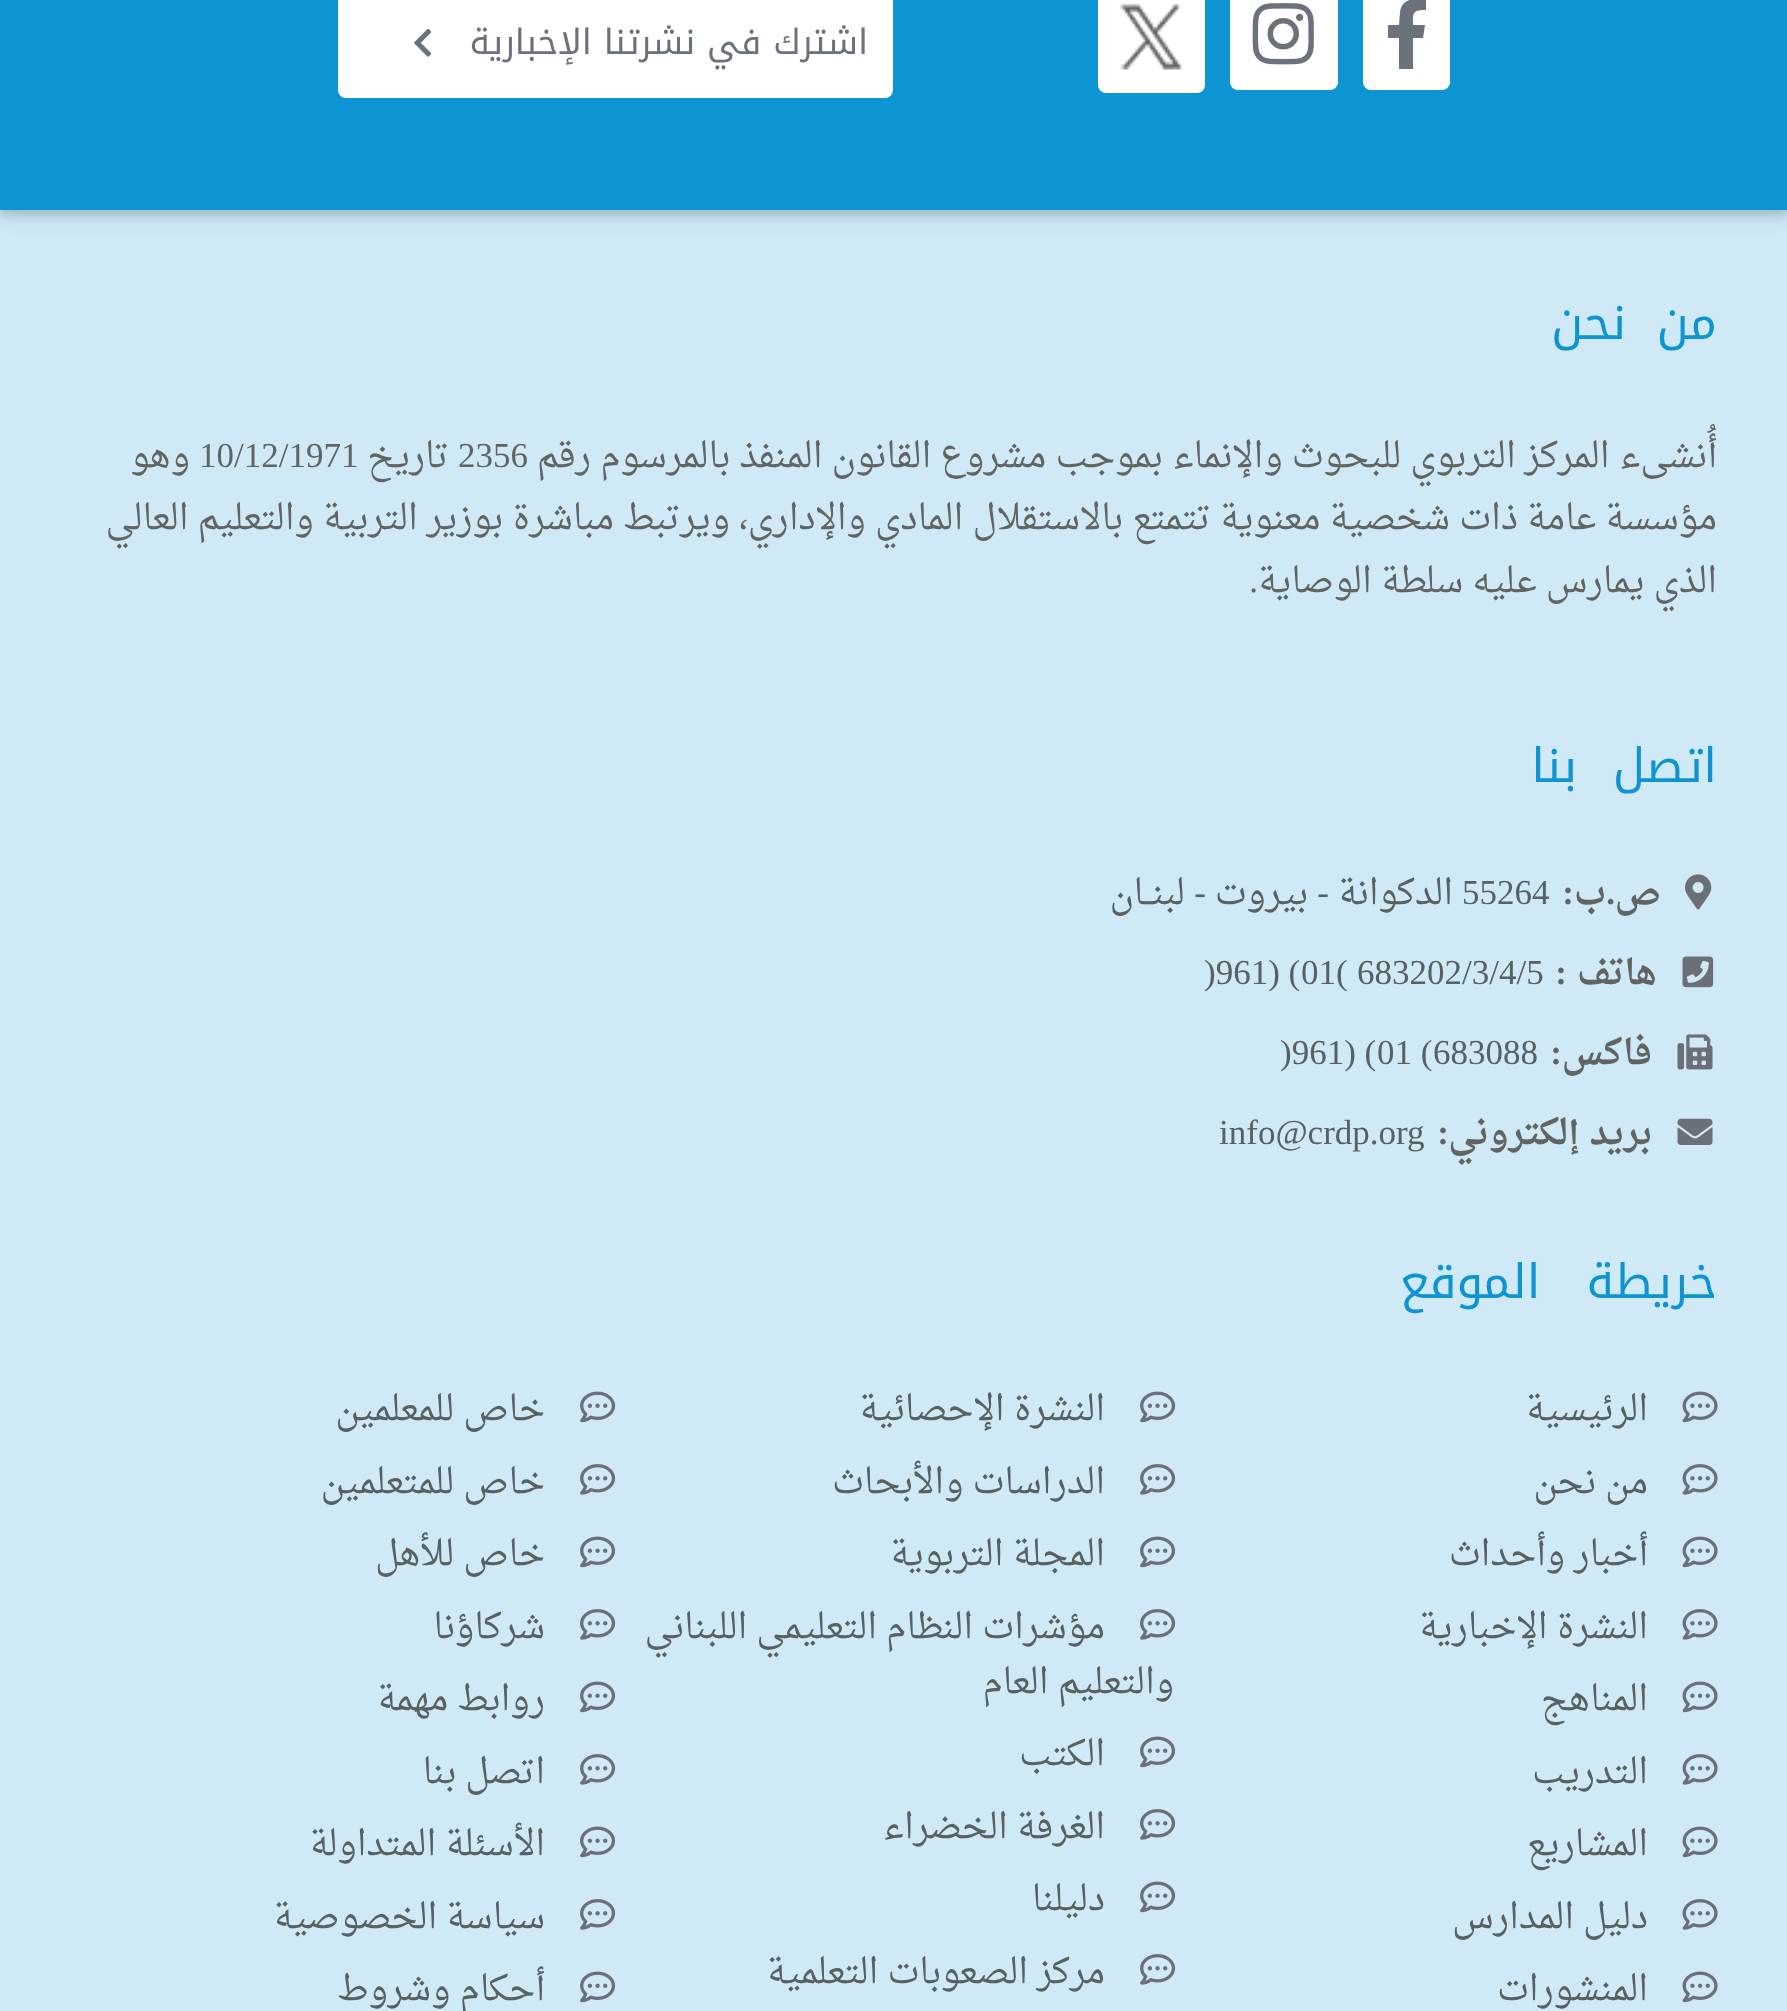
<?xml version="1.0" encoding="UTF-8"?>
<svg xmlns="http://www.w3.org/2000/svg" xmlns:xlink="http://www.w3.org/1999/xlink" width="1787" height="2011">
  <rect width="100%" height="100%" fill="#cfeaf6" />
  <rect y="-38" width="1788" height="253" fill="#031e2a" fill-opacity="0.12" filter="blur(12.5px)" />
  <rect y="-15" width="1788" height="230" fill="#031e2a" fill-opacity="0.16" filter="blur(5px)" />
  <rect width="1787" height="210" fill="#0e95d3" />
  <rect x="1363" y="-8" width="87" height="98" rx="8" fill="#ffffff" />
  <path d="M 1423 38 h -10 v 31 h -14 v -31 h -11 v -13 h 11 l 1 -13 c 2 -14 15 -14 26 -12 v 10 c -14 0 -13 3 -13 15 h 12 z" fill="#6b727c" />
  <rect x="1230" y="-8" width="108" height="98" rx="8" fill="#ffffff" />
  <image x="1252" y="3" width="62" height="62" xlink:href="image1.png" />
  <rect x="1098" y="-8" width="107" height="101" rx="8" fill="#ffffff" />
  <image x="1120" y="3" width="63" height="67" xlink:href="image2.png" />
  <rect x="338" y="-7" width="555" height="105" rx="8" fill="#ffffff" />
  <image x="414" y="29" width="17" height="28" xlink:href="image3.png" />
  <image x="1685" y="874" width="27" height="36" xlink:href="image4.png" />
  <image x="1682" y="956" width="32" height="32" xlink:href="image5.png" />
  <image x="1677" y="1034" width="36" height="36" xlink:href="image6.png" />
  <image x="1677" y="1118" width="36" height="27" xlink:href="image7.png" />
  <image x="1682" y="1391" width="36" height="32" xlink:href="image8.png" />
  <image x="1682" y="1464" width="36" height="31" xlink:href="image9.png" />
  <image x="1682" y="1536" width="36" height="32" xlink:href="image8.png" />
  <image x="1682" y="1609" width="36" height="31" xlink:href="image9.png" />
  <image x="1682" y="1681" width="36" height="32" xlink:href="image8.png" />
  <image x="1682" y="1754" width="36" height="31" xlink:href="image9.png" />
  <image x="1682" y="1826" width="36" height="32" xlink:href="image8.png" />
  <image x="1682" y="1899" width="36" height="31" xlink:href="image9.png" />
  <image x="1682" y="1971" width="36" height="32" xlink:href="image8.png" />
  <image x="1140" y="1391" width="36" height="32" xlink:href="image10.png" />
  <image x="1140" y="1464" width="36" height="31" xlink:href="image11.png" />
  <image x="1140" y="1536" width="36" height="32" xlink:href="image10.png" />
  <image x="1140" y="1609" width="36" height="31" xlink:href="image11.png" />
  <image x="1140" y="1736" width="36" height="32" xlink:href="image10.png" />
  <image x="1140" y="1809" width="36" height="31" xlink:href="image11.png" />
  <image x="1140" y="1881" width="36" height="32" xlink:href="image10.png" />
  <image x="1140" y="1954" width="36" height="31" xlink:href="image11.png" />
  <image x="580" y="1391" width="36" height="32" xlink:href="image10.png" />
  <image x="580" y="1464" width="36" height="31" xlink:href="image11.png" />
  <image x="580" y="1536" width="36" height="32" xlink:href="image10.png" />
  <image x="580" y="1609" width="36" height="31" xlink:href="image11.png" />
  <image x="580" y="1681" width="36" height="32" xlink:href="image10.png" />
  <image x="580" y="1754" width="36" height="31" xlink:href="image11.png" />
  <image x="580" y="1826" width="36" height="32" xlink:href="image10.png" />
  <image x="580" y="1899" width="36" height="31" xlink:href="image11.png" />
  <image x="580" y="1971" width="36" height="32" xlink:href="image10.png" />
  <text x="868" y="54" style="font-family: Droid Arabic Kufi; font-size: 35px; direction: rtl; fill: #6b727c">اشترك في نشرتنا الإخبارية</text>
  <text x="1717" y="339" word-spacing="15" style="font-family: Droid Arabic Kufi; font-size: 47.5px; letter-spacing: -2.5px; direction: rtl; fill: #0e94d3">من نحن</text>
  <text x="1717" y="467" style="font-family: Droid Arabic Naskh; font-size: 35px; direction: rtl; fill: #616463">أُنشىء المركز التربوي للبحوث والإنماء بموجب مشروع القانون المنفذ بالمرسوم رقم</text>
  <text x="458" y="467" style="font-family: Liberation Serif; font-size: 35px; fill: #616463">2356</text>
  <text x="449" y="467" style="font-family: Droid Arabic Naskh; font-size: 35px; direction: rtl; fill: #616463">تاريخ</text>
  <text x="199" y="467" style="font-family: Liberation Serif; font-size: 35px; fill: #616463">10/12/1971</text>
  <text x="190" y="467" style="font-family: Droid Arabic Naskh; font-size: 35px; direction: rtl; fill: #616463">وهو</text>
  <text x="1717" y="529" style="font-family: Droid Arabic Naskh; font-size: 35px; direction: rtl; fill: #616463">مؤسسة عامة ذات شخصية معنوية تتمتع بالاستقلال المادي والإداري، ويرتبط مباشرة بوزير التربية والتعليم العالي</text>
  <text x="1717" y="592" style="font-family: Droid Arabic Naskh; font-size: 35px; direction: rtl; fill: #616463">الذي يمارس عليه سلطة الوصاية</text>
  <text x="1258" y="592" style="font-family: Liberation Serif; font-size: 35px; direction: rtl; fill: #616463">.</text>
  <text x="1717" y="782" word-spacing="20" style="font-family: Droid Arabic Kufi; font-size: 47.5px; letter-spacing: -2.5px; direction: rtl; fill: #0e94d3">اتصل بنا</text>
  <text x="1661" y="904" style="font-family: Droid Arabic Naskh; font-size: 35px; font-weight: bold; direction: rtl; fill: #616463">ص</text>
  <text x="1615" y="904" style="font-family: Liberation Serif; font-size: 35px; font-weight: bold; direction: rtl; fill: #616463">.</text>
  <text x="1606" y="904" style="font-family: Droid Arabic Naskh; font-size: 35px; font-weight: bold; direction: rtl; fill: #616463">ب</text>
  <text x="1574" y="904" style="font-family: Liberation Serif; font-size: 35px; font-weight: bold; direction: rtl; fill: #616463">:</text>
  <text x="1462" y="904" style="font-family: Liberation Serif; font-size: 35px; fill: #586062">55264</text>
  <text x="1453" y="904" style="font-family: Droid Arabic Naskh; font-size: 35px; direction: rtl; fill: #586062">الدكوانة</text>
  <text x="1329" y="904" style="font-family: Liberation Serif; font-size: 35px; direction: rtl; fill: #586062">-</text>
  <text x="1308" y="904" style="font-family: Droid Arabic Naskh; font-size: 35px; direction: rtl; fill: #586062">بيروت</text>
  <text x="1206" y="904" style="font-family: Liberation Serif; font-size: 35px; direction: rtl; fill: #586062">-</text>
  <text x="1185" y="904" style="font-family: Droid Arabic Naskh; font-size: 35px; direction: rtl; fill: #586062">لبنــان</text>
  <text x="1657" y="984" style="font-family: Droid Arabic Naskh; font-size: 35px; font-weight: bold; direction: rtl; fill: #616463">هاتف</text>
  <text x="1567" y="984" style="font-family: Liberation Serif; font-size: 35px; font-weight: bold; direction: rtl; fill: #616463">:</text>
  <text x="1357" y="984" style="font-family: Liberation Serif; font-size: 35px; fill: #586062">683202/3/4/5</text>
  <text x="1301" y="984" style="font-family: Liberation Serif; font-size: 35px; fill: #586062">01(</text>
  <text x="1204" y="984" style="font-family: Liberation Serif; font-size: 35px; fill: #586062">)961) (</text>
  <text x="1652" y="1064" style="font-family: Droid Arabic Naskh; font-size: 35px; font-weight: bold; direction: rtl; fill: #616463">فاكس</text>
  <text x="1562" y="1064" style="font-family: Liberation Serif; font-size: 35px; font-weight: bold; direction: rtl; fill: #616463">:</text>
  <text x="1433" y="1064" style="font-family: Liberation Serif; font-size: 35px; fill: #586062">683088</text>
  <text x="1377" y="1064" style="font-family: Liberation Serif; font-size: 35px; fill: #586062">01 (</text>
  <text x="1280" y="1064" style="font-family: Liberation Serif; font-size: 35px; fill: #586062">)961) (</text>
  <text x="1652" y="1144" style="font-family: Droid Arabic Naskh; font-size: 35px; font-weight: bold; direction: rtl; fill: #616463">بريد إلكتروني</text>
  <text x="1449" y="1144" style="font-family: Liberation Serif; font-size: 35px; font-weight: bold; direction: rtl; fill: #616463">:</text>
  <text x="1219" y="1144" style="font-family: Liberation Serif; font-size: 35px; fill: #586062">info@crdp.org</text>
  <text x="1717" y="1298" word-spacing="30" style="font-family: Droid Arabic Kufi; font-size: 47.5px; letter-spacing: -2.5px; direction: rtl; fill: #0e94d3">خريطة الموقع</text>
  <text x="1648" y="1420" style="font-family: Droid Arabic Naskh; font-size: 35px; direction: rtl; fill: #586062">الرئيسية</text>
  <text x="1648" y="1493" style="font-family: Droid Arabic Naskh; font-size: 35px; direction: rtl; fill: #586062">من نحن</text>
  <text x="1648" y="1565" style="font-family: Droid Arabic Naskh; font-size: 35px; direction: rtl; fill: #586062">أخبار وأحداث</text>
  <text x="1648" y="1638" style="font-family: Droid Arabic Naskh; font-size: 35px; direction: rtl; fill: #586062">النشرة الإخبارية</text>
  <text x="1648" y="1710" style="font-family: Droid Arabic Naskh; font-size: 35px; direction: rtl; fill: #586062">المناهج</text>
  <text x="1648" y="1783" style="font-family: Droid Arabic Naskh; font-size: 35px; direction: rtl; fill: #586062">التدريب</text>
  <text x="1648" y="1855" style="font-family: Droid Arabic Naskh; font-size: 35px; direction: rtl; fill: #586062">المشاريع</text>
  <text x="1648" y="1928" style="font-family: Droid Arabic Naskh; font-size: 35px; direction: rtl; fill: #586062">دليل المدارس</text>
  <text x="1648" y="2000" style="font-family: Droid Arabic Naskh; font-size: 35px; direction: rtl; fill: #586062">المنشورات</text>
  <text x="1105" y="1420" style="font-family: Droid Arabic Naskh; font-size: 35px; direction: rtl; fill: #586062">النشرة الإحصائية</text>
  <text x="1105" y="1493" style="font-family: Droid Arabic Naskh; font-size: 35px; direction: rtl; fill: #586062">الدراسات والأبحاث</text>
  <text x="1105" y="1565" style="font-family: Droid Arabic Naskh; font-size: 35px; direction: rtl; fill: #586062">المجلة التربوية</text>
  <text x="1105" y="1638" style="font-family: Droid Arabic Naskh; font-size: 35px; direction: rtl; fill: #586062">مؤشرات النظام التعليمي اللبناني</text>
  <text x="1174" y="1693" style="font-family: Droid Arabic Naskh; font-size: 35px; direction: rtl; fill: #586062">والتعليم العام</text>
  <text x="1105" y="1765" style="font-family: Droid Arabic Naskh; font-size: 35px; direction: rtl; fill: #586062">الكتب</text>
  <text x="1105" y="1838" style="font-family: Droid Arabic Naskh; font-size: 35px; direction: rtl; fill: #586062">الغرفة الخضراء</text>
  <text x="1105" y="1910" style="font-family: Droid Arabic Naskh; font-size: 35px; direction: rtl; fill: #586062">دليلنا</text>
  <text x="1105" y="1983" style="font-family: Droid Arabic Naskh; font-size: 35px; direction: rtl; fill: #586062">مركز الصعوبات التعلمية</text>
  <text x="545" y="1420" style="font-family: Droid Arabic Naskh; font-size: 35px; direction: rtl; fill: #586062">خاص للمعلمين</text>
  <text x="545" y="1493" style="font-family: Droid Arabic Naskh; font-size: 35px; direction: rtl; fill: #586062">خاص للمتعلمين</text>
  <text x="545" y="1565" style="font-family: Droid Arabic Naskh; font-size: 35px; direction: rtl; fill: #586062">خاص للأهل</text>
  <text x="545" y="1638" style="font-family: Droid Arabic Naskh; font-size: 35px; direction: rtl; fill: #586062">شركاؤنا</text>
  <text x="545" y="1710" style="font-family: Droid Arabic Naskh; font-size: 35px; direction: rtl; fill: #586062">روابط مهمة</text>
  <text x="545" y="1783" style="font-family: Droid Arabic Naskh; font-size: 35px; direction: rtl; fill: #586062">اتصل بنا</text>
  <text x="545" y="1855" style="font-family: Droid Arabic Naskh; font-size: 35px; direction: rtl; fill: #586062">الأسئلة المتداولة</text>
  <text x="545" y="1928" style="font-family: Droid Arabic Naskh; font-size: 35px; direction: rtl; fill: #586062">سياسة الخصوصية</text>
  <text x="545" y="2000" style="font-family: Droid Arabic Naskh; font-size: 35px; direction: rtl; fill: #586062">أحكام وشروط</text>
</svg>
